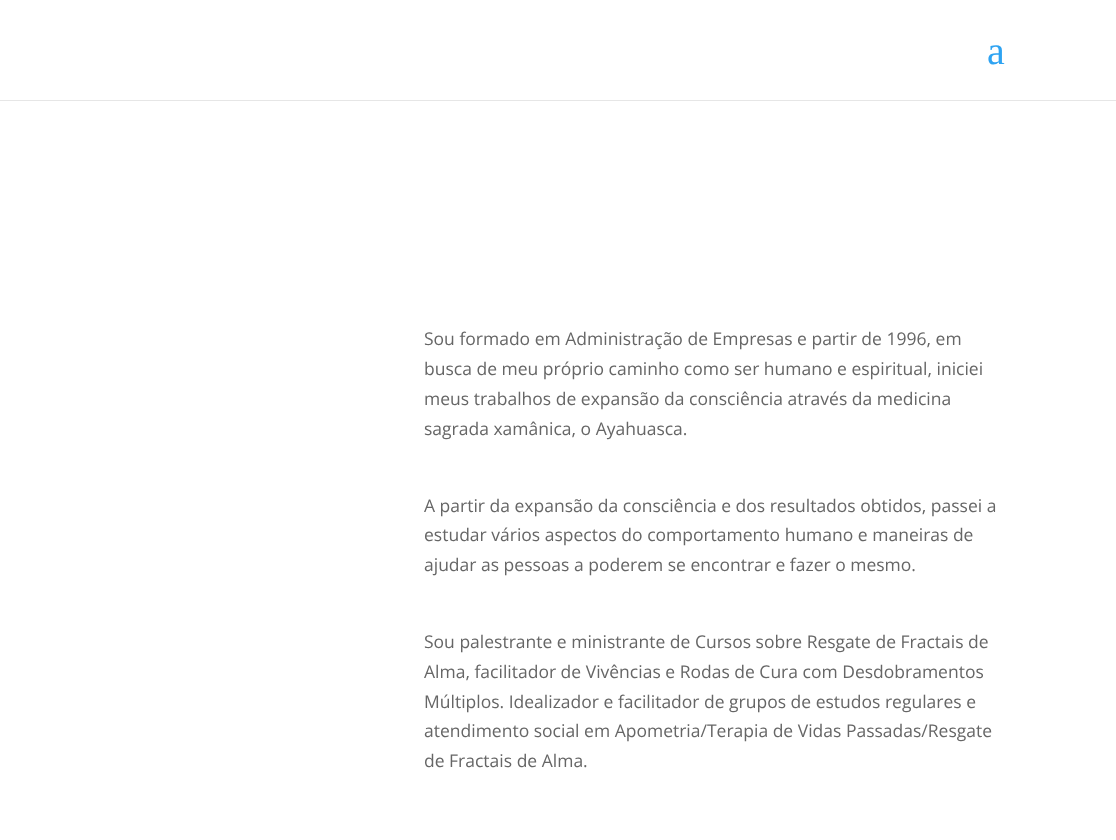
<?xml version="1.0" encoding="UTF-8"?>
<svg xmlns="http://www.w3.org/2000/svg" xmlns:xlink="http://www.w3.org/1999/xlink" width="1116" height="840">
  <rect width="100%" height="100%" fill="#ffffff" />
  <rect y="100" width="1116" height="1" fill="#e6e6e6" />
  <text x="987" y="64" style="font-family: Liberation Serif; font-size: 40px; fill: #2ea3f2">a</text>
  <text x="424" y="345" style="font-family: Open Sans; font-size: 17.5px; fill: #666666">Sou formado em Administração de Empresas e partir de 1996, em</text>
  <text x="424" y="375" style="font-family: Open Sans; font-size: 17.5px; fill: #666666">busca de meu próprio caminho como ser humano e espiritual, iniciei</text>
  <text x="424" y="405" style="font-family: Open Sans; font-size: 17.5px; fill: #666666">meus trabalhos de expansão da consciência através da medicina</text>
  <text x="424" y="435" style="font-family: Open Sans; font-size: 17.5px; fill: #666666">sagrada xamânica, o Ayahuasca.</text>
  <text x="424" y="512" style="font-family: Open Sans; font-size: 17.5px; fill: #666666">A partir da expansão da consciência e dos resultados obtidos, passei a</text>
  <text x="424" y="541" style="font-family: Open Sans; font-size: 17.5px; fill: #666666">estudar vários aspectos do comportamento humano e maneiras de</text>
  <text x="424" y="571" style="font-family: Open Sans; font-size: 17.5px; fill: #666666">ajudar as pessoas a poderem se encontrar e fazer o mesmo.</text>
  <text x="424" y="648" style="font-family: Open Sans; font-size: 17.5px; fill: #666666">Sou palestrante e ministrante de Cursos sobre Resgate de Fractais de</text>
  <text x="424" y="678" style="font-family: Open Sans; font-size: 17.5px; fill: #666666">Alma, facilitador de Vivências e Rodas de Cura com Desdobramentos</text>
  <text x="424" y="708" style="font-family: Open Sans; font-size: 17.5px; fill: #666666">Múltiplos. Idealizador e facilitador de grupos de estudos regulares e</text>
  <text x="424" y="737" style="font-family: Open Sans; font-size: 17.5px; fill: #666666">atendimento social em Apometria/Terapia de Vidas Passadas/Resgate</text>
  <text x="424" y="767" style="font-family: Open Sans; font-size: 17.5px; fill: #666666">de Fractais de Alma.</text>
</svg>
